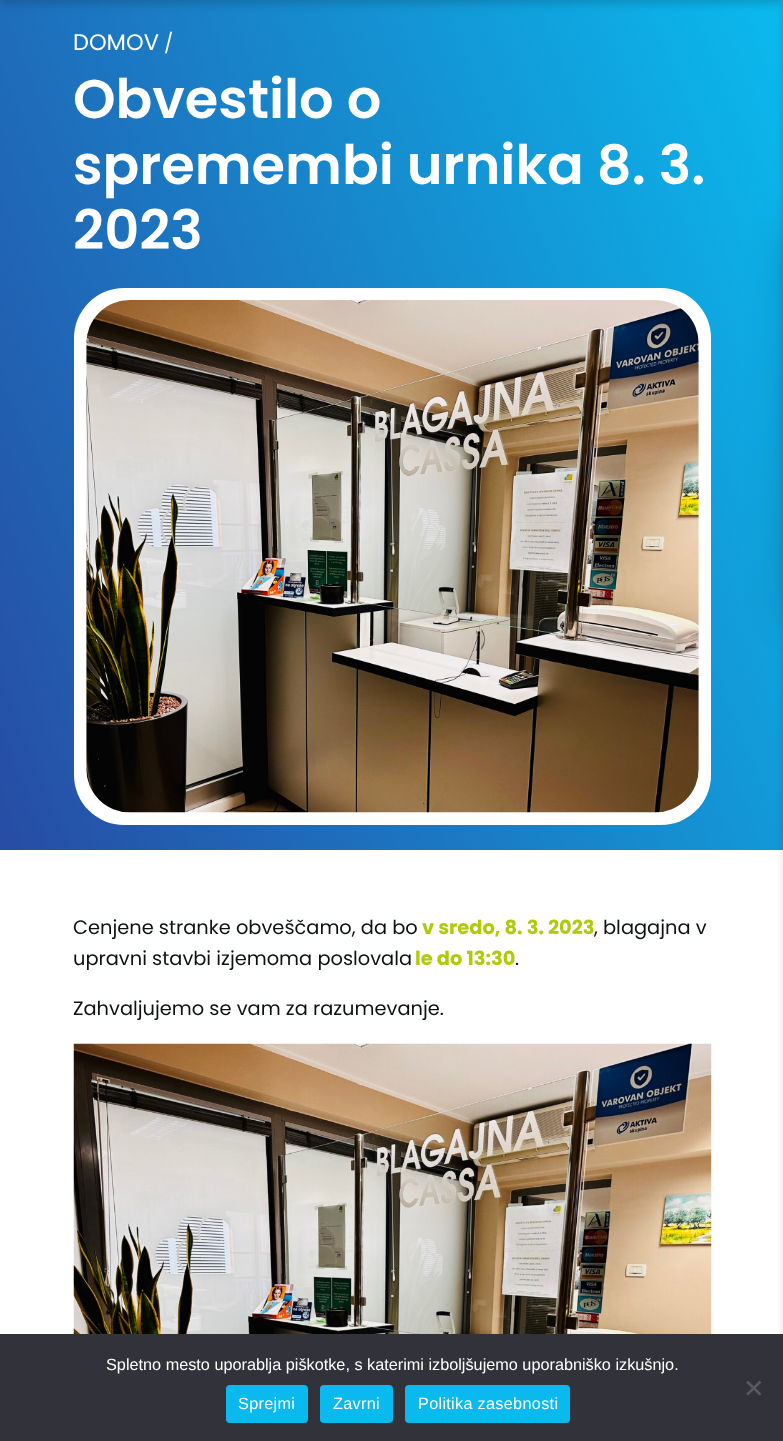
<?xml version="1.0" encoding="UTF-8"?>
<svg xmlns="http://www.w3.org/2000/svg" xmlns:xlink="http://www.w3.org/1999/xlink" width="783" height="1441">
  <defs>
    <linearGradient id="g1" gradientUnits="userSpaceOnUse" x1="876" y1="229" x2="-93" y2="621"><stop offset="0" stop-color="#0abaee" /><stop offset="1" stop-color="#274ca4" /></linearGradient>
  </defs>
  <rect width="100%" height="100%" fill="#ffffff" />
  <rect width="783" height="850" fill="url(#g1)" />
  <rect y="-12" width="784" height="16" fill="#000000" fill-opacity="0.16" filter="blur(4px)" />
  <rect x="74" y="288" width="637" height="537" rx="50" fill="#ffffff" />
  <image x="86" y="300" width="613" height="513" xlink:href="image1.png" />
  <rect x="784" y="4" width="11" height="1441" fill="#000000" fill-opacity="0.16" filter="blur(4px)" />
  <rect x="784" y="229" width="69" height="391" rx="13" fill="#000000" fill-opacity="0.16" filter="blur(19px)" />
  <image x="73" y="1043" width="639" height="291" xlink:href="image2.png" />
  <rect y="1334" width="783" height="107" fill="#32323a" />
  <path d="M 759.5 1380.5 l 2 2 l -13.5 13 l -2 -1.5 z" fill="#59595d" />
  <path d="M 746 1382.5 l 2 -2 l 13.5 13.5 l -2 1.5 z" fill="#59595d" />
  <rect x="226" y="1385" width="82" height="38" rx="4" fill="#0abaee" />
  <rect x="320" y="1385" width="73" height="38" rx="4" fill="#0abaee" />
  <rect x="405" y="1385" width="165" height="38" rx="4" fill="#0abaee" />
  <text x="73" y="50" style="font-family: Poppins; font-size: 22.5px; fill: #ffffff">DOMOV</text>
  <text x="164" y="50" style="font-family: Poppins; font-size: 19.4px; fill: #ffffff">/</text>
  <text x="73" y="118" style="font-family: Poppins; font-size: 54.25px; font-weight: 600; fill: #ffffff">Obvestilo o</text>
  <text x="73" y="184" style="font-family: Poppins; font-size: 54.25px; font-weight: 600; fill: #ffffff">spremembi urnika 8. 3.</text>
  <text x="73" y="249" style="font-family: Poppins; font-size: 54.25px; font-weight: 600; fill: #ffffff">2023</text>
  <text x="73" y="934" style="font-family: Poppins; font-size: 19.4px; fill: #0e1111">Cenjene stranke obveščamo, da bo</text>
  <text x="422" y="934" style="font-family: Poppins; font-size: 19.4px; font-weight: bold; fill: #afca0b">v sredo, 8. 3. 2023</text>
  <text x="594" y="934" style="font-family: Poppins; font-size: 19.4px; fill: #0e1111">, blagajna v</text>
  <text x="73" y="965" style="font-family: Poppins; font-size: 19.4px; fill: #0e1111">upravni stavbi izjemoma poslovala</text>
  <text x="415" y="965" style="font-family: Poppins; font-size: 19.4px; font-weight: bold; fill: #afca0b">le do 13:30</text>
  <text x="515" y="965" style="font-family: Poppins; font-size: 19.4px; fill: #0e1111">.</text>
  <text x="73" y="1015" style="font-family: Poppins; font-size: 19.4px; fill: #0e1111">Zahvaljujemo se vam za razumevanje.</text>
  <text x="106" y="1370" style="font-family: Liberation Sans; font-size: 16.25px; fill: #ffffff">Spletno mesto uporablja piškotke, s katerimi izboljšujemo uporabniško izkušnjo.</text>
  <text x="238" y="1409" style="font-family: Liberation Sans; font-size: 16.25px; letter-spacing: 0.3px; fill: #ffffff">Sprejmi</text>
  <text x="333" y="1409" style="font-family: Liberation Sans; font-size: 16.25px; letter-spacing: 0.3px; fill: #ffffff">Zavrni</text>
  <text x="418" y="1409" style="font-family: Liberation Sans; font-size: 16.25px; letter-spacing: 0.3px; fill: #ffffff">Politika zasebnosti</text>
</svg>
